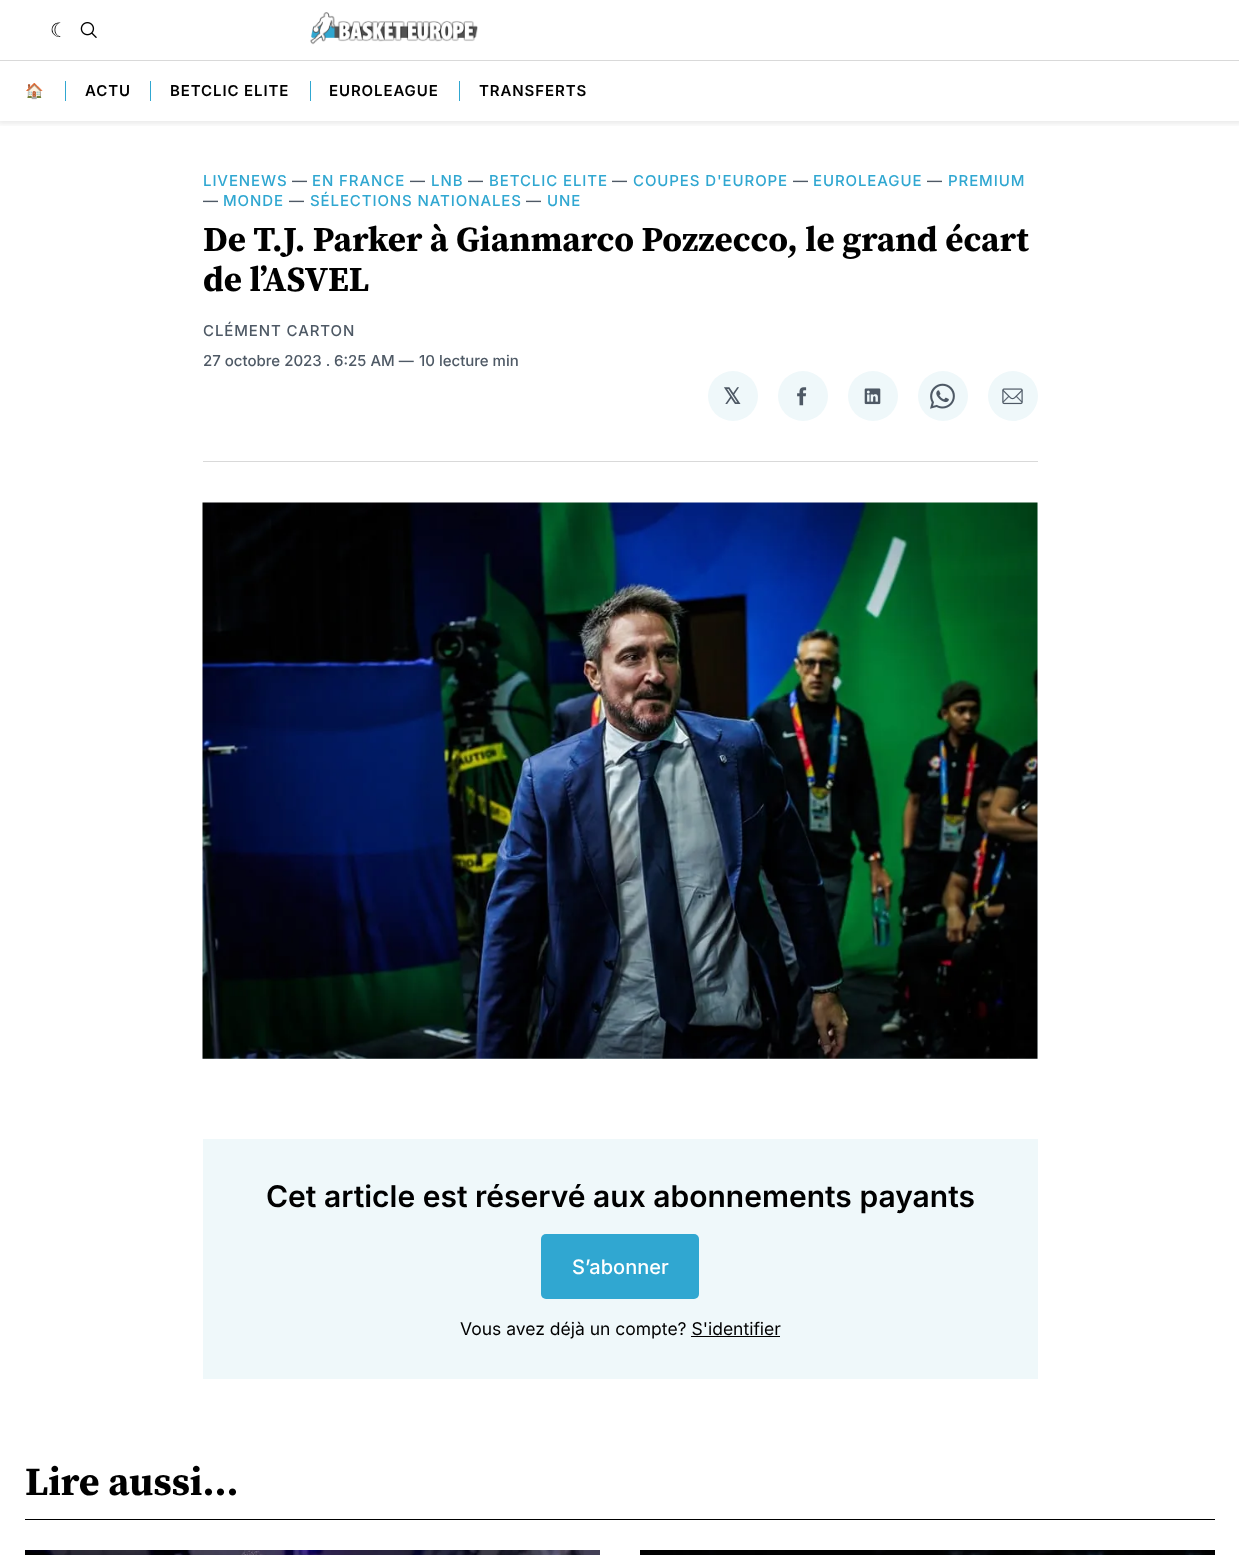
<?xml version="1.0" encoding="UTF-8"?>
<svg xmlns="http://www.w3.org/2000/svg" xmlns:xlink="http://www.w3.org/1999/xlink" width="1239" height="1555">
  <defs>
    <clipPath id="clip1"><rect x="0" y="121" width="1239" height="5" /></clipPath>
  </defs>
  <rect width="100%" height="100%" fill="#ffffff" />
  <g clip-path="url(#clip1)">
    <rect x="-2" y="-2" width="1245" height="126" fill="#000000" fill-opacity="0.08" filter="blur(2.5px)" />
  </g>
  <rect y="60" width="1239" height="1" fill="#d9d9d9" />
  <image x="80" y="22" width="17" height="16" xlink:href="image1.png" />
  <image x="310" y="12" width="168" height="33" xlink:href="image2.png" />
  <rect x="65" y="81" width="1" height="20" fill="#30a7d1" />
  <rect x="150" y="81" width="1" height="20" fill="#30a7d1" />
  <rect x="310" y="81" width="1" height="20" fill="#30a7d1" />
  <rect x="459" y="81" width="1" height="20" fill="#30a7d1" />
  <rect x="203" y="461" width="835" height="1" fill="#d9d9d9" />
  <circle cx="733" cy="396" r="25" fill="#eff8fa" />
  <circle cx="803" cy="396" r="25" fill="#eff8fa" />
  <image x="797" y="387" width="10" height="19" xlink:href="image3.png" />
  <circle cx="873" cy="396" r="25" fill="#eff8fa" />
  <image x="864" y="388" width="17" height="17" xlink:href="image4.png" />
  <circle cx="943" cy="396" r="25" fill="#eff8fa" />
  <image x="930" y="383" width="25" height="26" xlink:href="image5.png" />
  <circle cx="1013" cy="396" r="25" fill="#eff8fa" />
  <image x="1002" y="388" width="21" height="17" xlink:href="image6.png" />
  <rect x="203" y="503" width="835" height="556" fill="#eff8fa" />
  <image x="202" y="502" width="836" height="557" xlink:href="image7.png" />
  <rect x="203" y="1139" width="835" height="240" fill="#eff8fa" />
  <rect x="541" y="1234" width="158" height="65" rx="5" fill="#30a7d1" />
  <rect x="691" y="1336" width="89" height="1" fill="#000000" />
  <rect x="25" y="1519" width="1190" height="1" fill="#000000" />
  <image x="25" y="1550" width="575" height="5" xlink:href="image8.png" />
  <image x="640" y="1550" width="575" height="5" xlink:href="image9.png" />
  <text x="50" y="37" style="font-family: DejaVu Sans; font-size: 20px; letter-spacing: 0.9px; fill: #000000">☾</text>
  <text x="25" y="96" style="font-family: Noto Color Emoji; font-size: 15px; font-weight: bold; letter-spacing: 0.9px; fill: #000000">🏠</text>
  <text x="85" y="96" style="font-family: Inter; font-size: 15px; font-weight: 600; letter-spacing: 0.9px; fill: #000000">ACTU</text>
  <text x="170" y="96" style="font-family: Inter; font-size: 15px; font-weight: 600; letter-spacing: 0.9px; fill: #000000">BETCLIC ELITE</text>
  <text x="329" y="96" style="font-family: Inter; font-size: 15px; font-weight: 600; letter-spacing: 0.9px; fill: #000000">EUROLEAGUE</text>
  <text x="479" y="96" style="font-family: Inter; font-size: 15px; font-weight: 600; letter-spacing: 0.9px; fill: #000000">TRANSFERTS</text>
  <text x="203" y="186" style="font-family: Inter; font-size: 15px; font-weight: 500; letter-spacing: 0.9px; fill: #30a7d1">LIVENEWS</text>
  <text x="292" y="186" style="font-family: Inter; font-size: 15px; font-weight: 500; letter-spacing: 0.9px; fill: #4e5965">—</text>
  <text x="312" y="186" style="font-family: Inter; font-size: 15px; font-weight: 500; letter-spacing: 0.9px; fill: #30a7d1">EN FRANCE</text>
  <text x="410" y="186" style="font-family: Inter; font-size: 15px; font-weight: 500; letter-spacing: 0.9px; fill: #4e5965">—</text>
  <text x="431" y="186" style="font-family: Inter; font-size: 15px; font-weight: 500; letter-spacing: 0.9px; fill: #30a7d1">LNB</text>
  <text x="468" y="186" style="font-family: Inter; font-size: 15px; font-weight: 500; letter-spacing: 0.9px; fill: #4e5965">—</text>
  <text x="489" y="186" style="font-family: Inter; font-size: 15px; font-weight: 500; letter-spacing: 0.9px; fill: #30a7d1">BETCLIC ELITE</text>
  <text x="612" y="186" style="font-family: Inter; font-size: 15px; font-weight: 500; letter-spacing: 0.9px; fill: #4e5965">—</text>
  <text x="633" y="186" style="font-family: Inter; font-size: 15px; font-weight: 500; letter-spacing: 0.9px; fill: #30a7d1">COUPES D'EUROPE</text>
  <text x="793" y="186" style="font-family: Inter; font-size: 15px; font-weight: 500; letter-spacing: 0.9px; fill: #4e5965">—</text>
  <text x="813" y="186" style="font-family: Inter; font-size: 15px; font-weight: 500; letter-spacing: 0.9px; fill: #30a7d1">EUROLEAGUE</text>
  <text x="927" y="186" style="font-family: Inter; font-size: 15px; font-weight: 500; letter-spacing: 0.9px; fill: #4e5965">—</text>
  <text x="948" y="186" style="font-family: Inter; font-size: 15px; font-weight: 500; letter-spacing: 0.9px; fill: #30a7d1">PREMIUM</text>
  <text x="203" y="206" style="font-family: Inter; font-size: 15px; font-weight: 500; letter-spacing: 0.9px; fill: #4e5965">—</text>
  <text x="223" y="206" style="font-family: Inter; font-size: 15px; font-weight: 500; letter-spacing: 0.9px; fill: #30a7d1">MONDE</text>
  <text x="289" y="206" style="font-family: Inter; font-size: 15px; font-weight: 500; letter-spacing: 0.9px; fill: #4e5965">—</text>
  <text x="310" y="206" style="font-family: Inter; font-size: 15px; font-weight: 500; letter-spacing: 0.9px; fill: #30a7d1">SÉLECTIONS NATIONALES</text>
  <text x="526" y="206" style="font-family: Inter; font-size: 15px; font-weight: 500; letter-spacing: 0.9px; fill: #4e5965">—</text>
  <text x="547" y="206" style="font-family: Inter; font-size: 15px; font-weight: 500; letter-spacing: 0.9px; fill: #30a7d1">UNE</text>
  <text x="203" y="251" style="font-family: Source Serif Pro; font-size: 35px; font-weight: bold; fill: #000000">De T.J. Parker à Gianmarco Pozzecco, le grand écart</text>
  <text x="203" y="291" style="font-family: Source Serif Pro; font-size: 35px; font-weight: bold; fill: #000000">de l’ASVEL</text>
  <text x="203" y="336" style="font-family: Inter; font-size: 15px; font-weight: 500; letter-spacing: 0.9px; fill: #4e5965">CLÉMENT CARTON</text>
  <text x="203" y="366" style="font-family: Inter; font-size: 15px; font-weight: 500; fill: #4e5965">27 octobre 2023 . 6:25 AM —</text>
  <text x="419" y="366" style="font-family: Inter; font-size: 15px; font-weight: 500; fill: #4e5965">10 lecture min</text>
  <text x="723" y="404" style="font-family: DejaVu Sans; font-size: 22px; font-weight: bold; fill: #4e5965">𝕏</text>
  <text x="266" y="1207" style="font-family: Inter; font-size: 30px; font-weight: 600; fill: #000000">Cet article est réservé aux abonnements payants</text>
  <text x="572" y="1274" style="font-family: Inter; font-size: 20px; font-weight: 500; fill: #ffffff">S’abonner</text>
  <text x="460" y="1335" style="font-family: Inter; font-size: 17.5px; fill: #000000">Vous avez déjà un compte? S'identifier</text>
  <text x="25" y="1495" style="font-family: Source Serif Pro; font-size: 40px; font-weight: bold; fill: #000000">Lire aussi...</text>
</svg>
